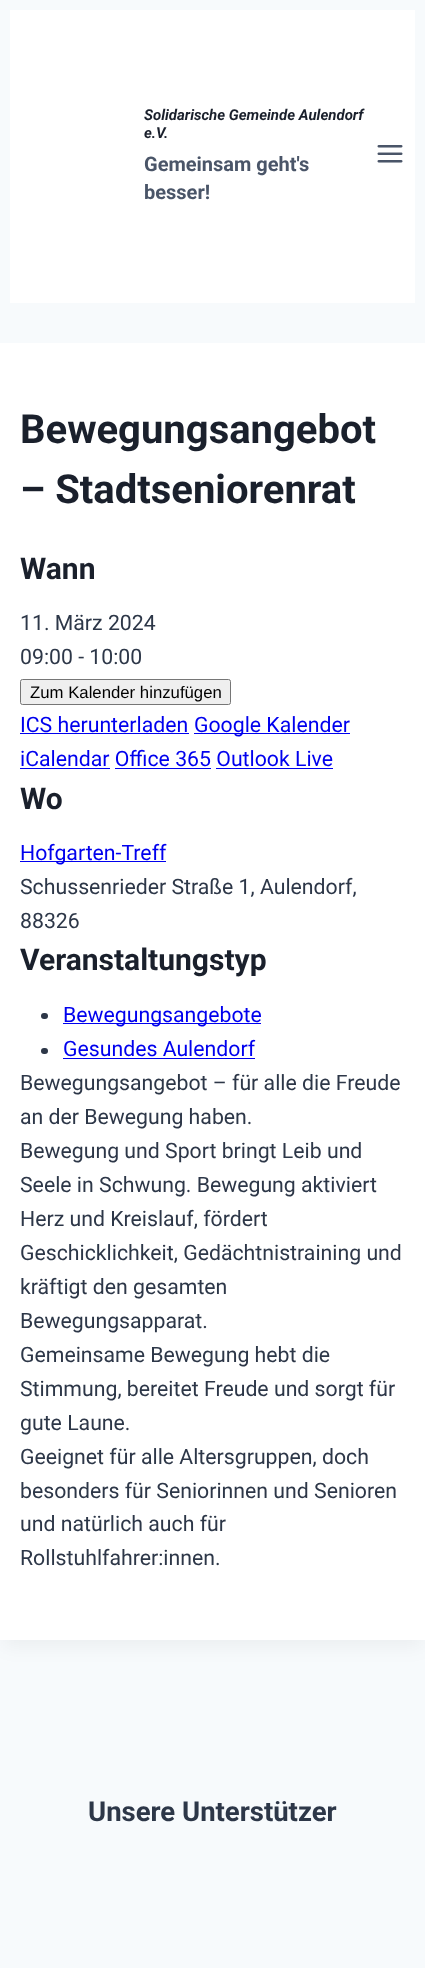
<?xml version="1.0" encoding="UTF-8"?>
<svg xmlns="http://www.w3.org/2000/svg" xmlns:xlink="http://www.w3.org/1999/xlink" width="425" height="1968">
  <rect width="100%" height="100%" fill="#f7fafc" />
  <rect x="10" y="10" width="405" height="293" fill="#ffffff" />
  <image x="377" y="145" width="26" height="18" xlink:href="image1.png" />
  <rect x="3" y="374" width="420" height="1272" fill="#000000" fill-opacity="0.05" filter="blur(9.5px)" />
  <rect y="343" width="425" height="1297" fill="#ffffff" />
  <rect x="20.5" y="679.5" width="210" height="25" rx="2" fill="#efefef" stroke="#767676" />
  <rect x="20" y="733" width="169" height="1" fill="#0000ee" />
  <rect x="194" y="733" width="156" height="1" fill="#0000ee" />
  <rect x="20" y="768" width="90" height="1" fill="#0000ee" />
  <rect x="115" y="768" width="96" height="1" fill="#0000ee" />
  <rect x="216" y="768" width="117" height="1" fill="#0000ee" />
  <rect x="20" y="861" width="146" height="1" fill="#0000ee" />
  <rect x="41" y="1013" width="7" height="6" rx="3" fill="#2d3748" />
  <rect x="63" y="1023" width="198" height="1" fill="#0000ee" />
  <rect x="41" y="1048" width="7" height="6" rx="3" fill="#2d3748" />
  <rect x="63" y="1058" width="192" height="1" fill="#0000ee" />
  <text x="144" y="120" style="font-family: Roboto; font-size: 15px; font-weight: bold; font-style: italic; fill: #1a202c">Solidarische Gemeinde Aulendorf</text>
  <text x="144" y="138" style="font-family: Roboto; font-size: 15px; font-weight: bold; font-style: italic; fill: #1a202c">e.V.</text>
  <text x="144" y="171" style="font-family: Roboto; font-size: 20px; font-weight: bold; fill: #4a5568">Gemeinsam geht's</text>
  <text x="144" y="199" style="font-family: Roboto; font-size: 20px; font-weight: bold; fill: #4a5568">besser!</text>
  <text x="20" y="443" style="font-family: Roboto; font-size: 40px; font-weight: bold; fill: #1a202c">Bewegungsangebot</text>
  <text x="20" y="503" style="font-family: Roboto; font-size: 40px; font-weight: bold; fill: #1a202c">– Stadtseniorenrat</text>
  <text x="20" y="579" style="font-family: Roboto; font-size: 30px; font-weight: bold; fill: #1a202c">Wann</text>
  <text x="20" y="630" style="font-family: Roboto; font-size: 21.25px; fill: #2d3748">11. März 2024</text>
  <text x="20" y="664" style="font-family: Roboto; font-size: 21.25px; fill: #2d3748">09:00 - 10:00</text>
  <text x="30" y="698" style="font-family: Liberation Sans; font-size: 16.75px; fill: #000000">Zum Kalender hinzufügen</text>
  <text x="20" y="732" style="font-family: Roboto; font-size: 21.25px; fill: #0000ee">ICS herunterladen</text>
  <text x="194" y="732" style="font-family: Roboto; font-size: 21.25px; fill: #0000ee">Google Kalender</text>
  <text x="20" y="766" style="font-family: Roboto; font-size: 21.25px; fill: #0000ee">iCalendar Office 365 Outlook Live</text>
  <text x="20" y="809" style="font-family: Roboto; font-size: 30px; font-weight: bold; fill: #1a202c">Wo</text>
  <text x="20" y="860" style="font-family: Roboto; font-size: 21.25px; fill: #0000ee">Hofgarten-Treff</text>
  <text x="20" y="894" style="font-family: Roboto; font-size: 21.25px; fill: #2d3748">Schussenrieder Straße 1, Aulendorf,</text>
  <text x="20" y="928" style="font-family: Roboto; font-size: 21.25px; fill: #2d3748">88326</text>
  <text x="20" y="970" style="font-family: Roboto; font-size: 30px; font-weight: bold; fill: #1a202c">Veranstaltungstyp</text>
  <text x="63" y="1022" style="font-family: Roboto; font-size: 21.25px; fill: #0000ee">Bewegungsangebote</text>
  <text x="63" y="1056" style="font-family: Roboto; font-size: 21.25px; fill: #0000ee">Gesundes Aulendorf</text>
  <text x="20" y="1090" style="font-family: Roboto; font-size: 21.25px; fill: #2d3748">Bewegungsangebot – für alle die Freude</text>
  <text x="20" y="1124" style="font-family: Roboto; font-size: 21.25px; fill: #2d3748">an der Bewegung haben.</text>
  <text x="20" y="1158" style="font-family: Roboto; font-size: 21.25px; fill: #2d3748">Bewegung und Sport bringt Leib und</text>
  <text x="20" y="1192" style="font-family: Roboto; font-size: 21.25px; fill: #2d3748">Seele in Schwung. Bewegung aktiviert</text>
  <text x="20" y="1226" style="font-family: Roboto; font-size: 21.25px; fill: #2d3748">Herz und Kreislauf, fördert</text>
  <text x="20" y="1260" style="font-family: Roboto; font-size: 21.25px; fill: #2d3748">Geschicklichkeit, Gedächtnistraining und</text>
  <text x="20" y="1294" style="font-family: Roboto; font-size: 21.25px; fill: #2d3748">kräftigt den gesamten</text>
  <text x="20" y="1328" style="font-family: Roboto; font-size: 21.25px; fill: #2d3748">Bewegungsapparat.</text>
  <text x="20" y="1362" style="font-family: Roboto; font-size: 21.25px; fill: #2d3748">Gemeinsame Bewegung hebt die</text>
  <text x="20" y="1396" style="font-family: Roboto; font-size: 21.25px; fill: #2d3748">Stimmung, bereitet Freude und sorgt für</text>
  <text x="20" y="1430" style="font-family: Roboto; font-size: 21.25px; fill: #2d3748">gute Laune.</text>
  <text x="20" y="1464" style="font-family: Roboto; font-size: 21.25px; fill: #2d3748">Geeignet für alle Altersgruppen, doch</text>
  <text x="20" y="1498" style="font-family: Roboto; font-size: 21.25px; fill: #2d3748">besonders für Seniorinnen und Senioren</text>
  <text x="20" y="1531" style="font-family: Roboto; font-size: 21.25px; fill: #2d3748">und natürlich auch für</text>
  <text x="20" y="1565" style="font-family: Roboto; font-size: 21.25px; fill: #2d3748">Rollstuhlfahrer:innen.</text>
  <text x="88" y="1821" style="font-family: Roboto; font-size: 27.5px; font-weight: bold; fill: #2d3748">Unsere Unterstützer</text>
</svg>
